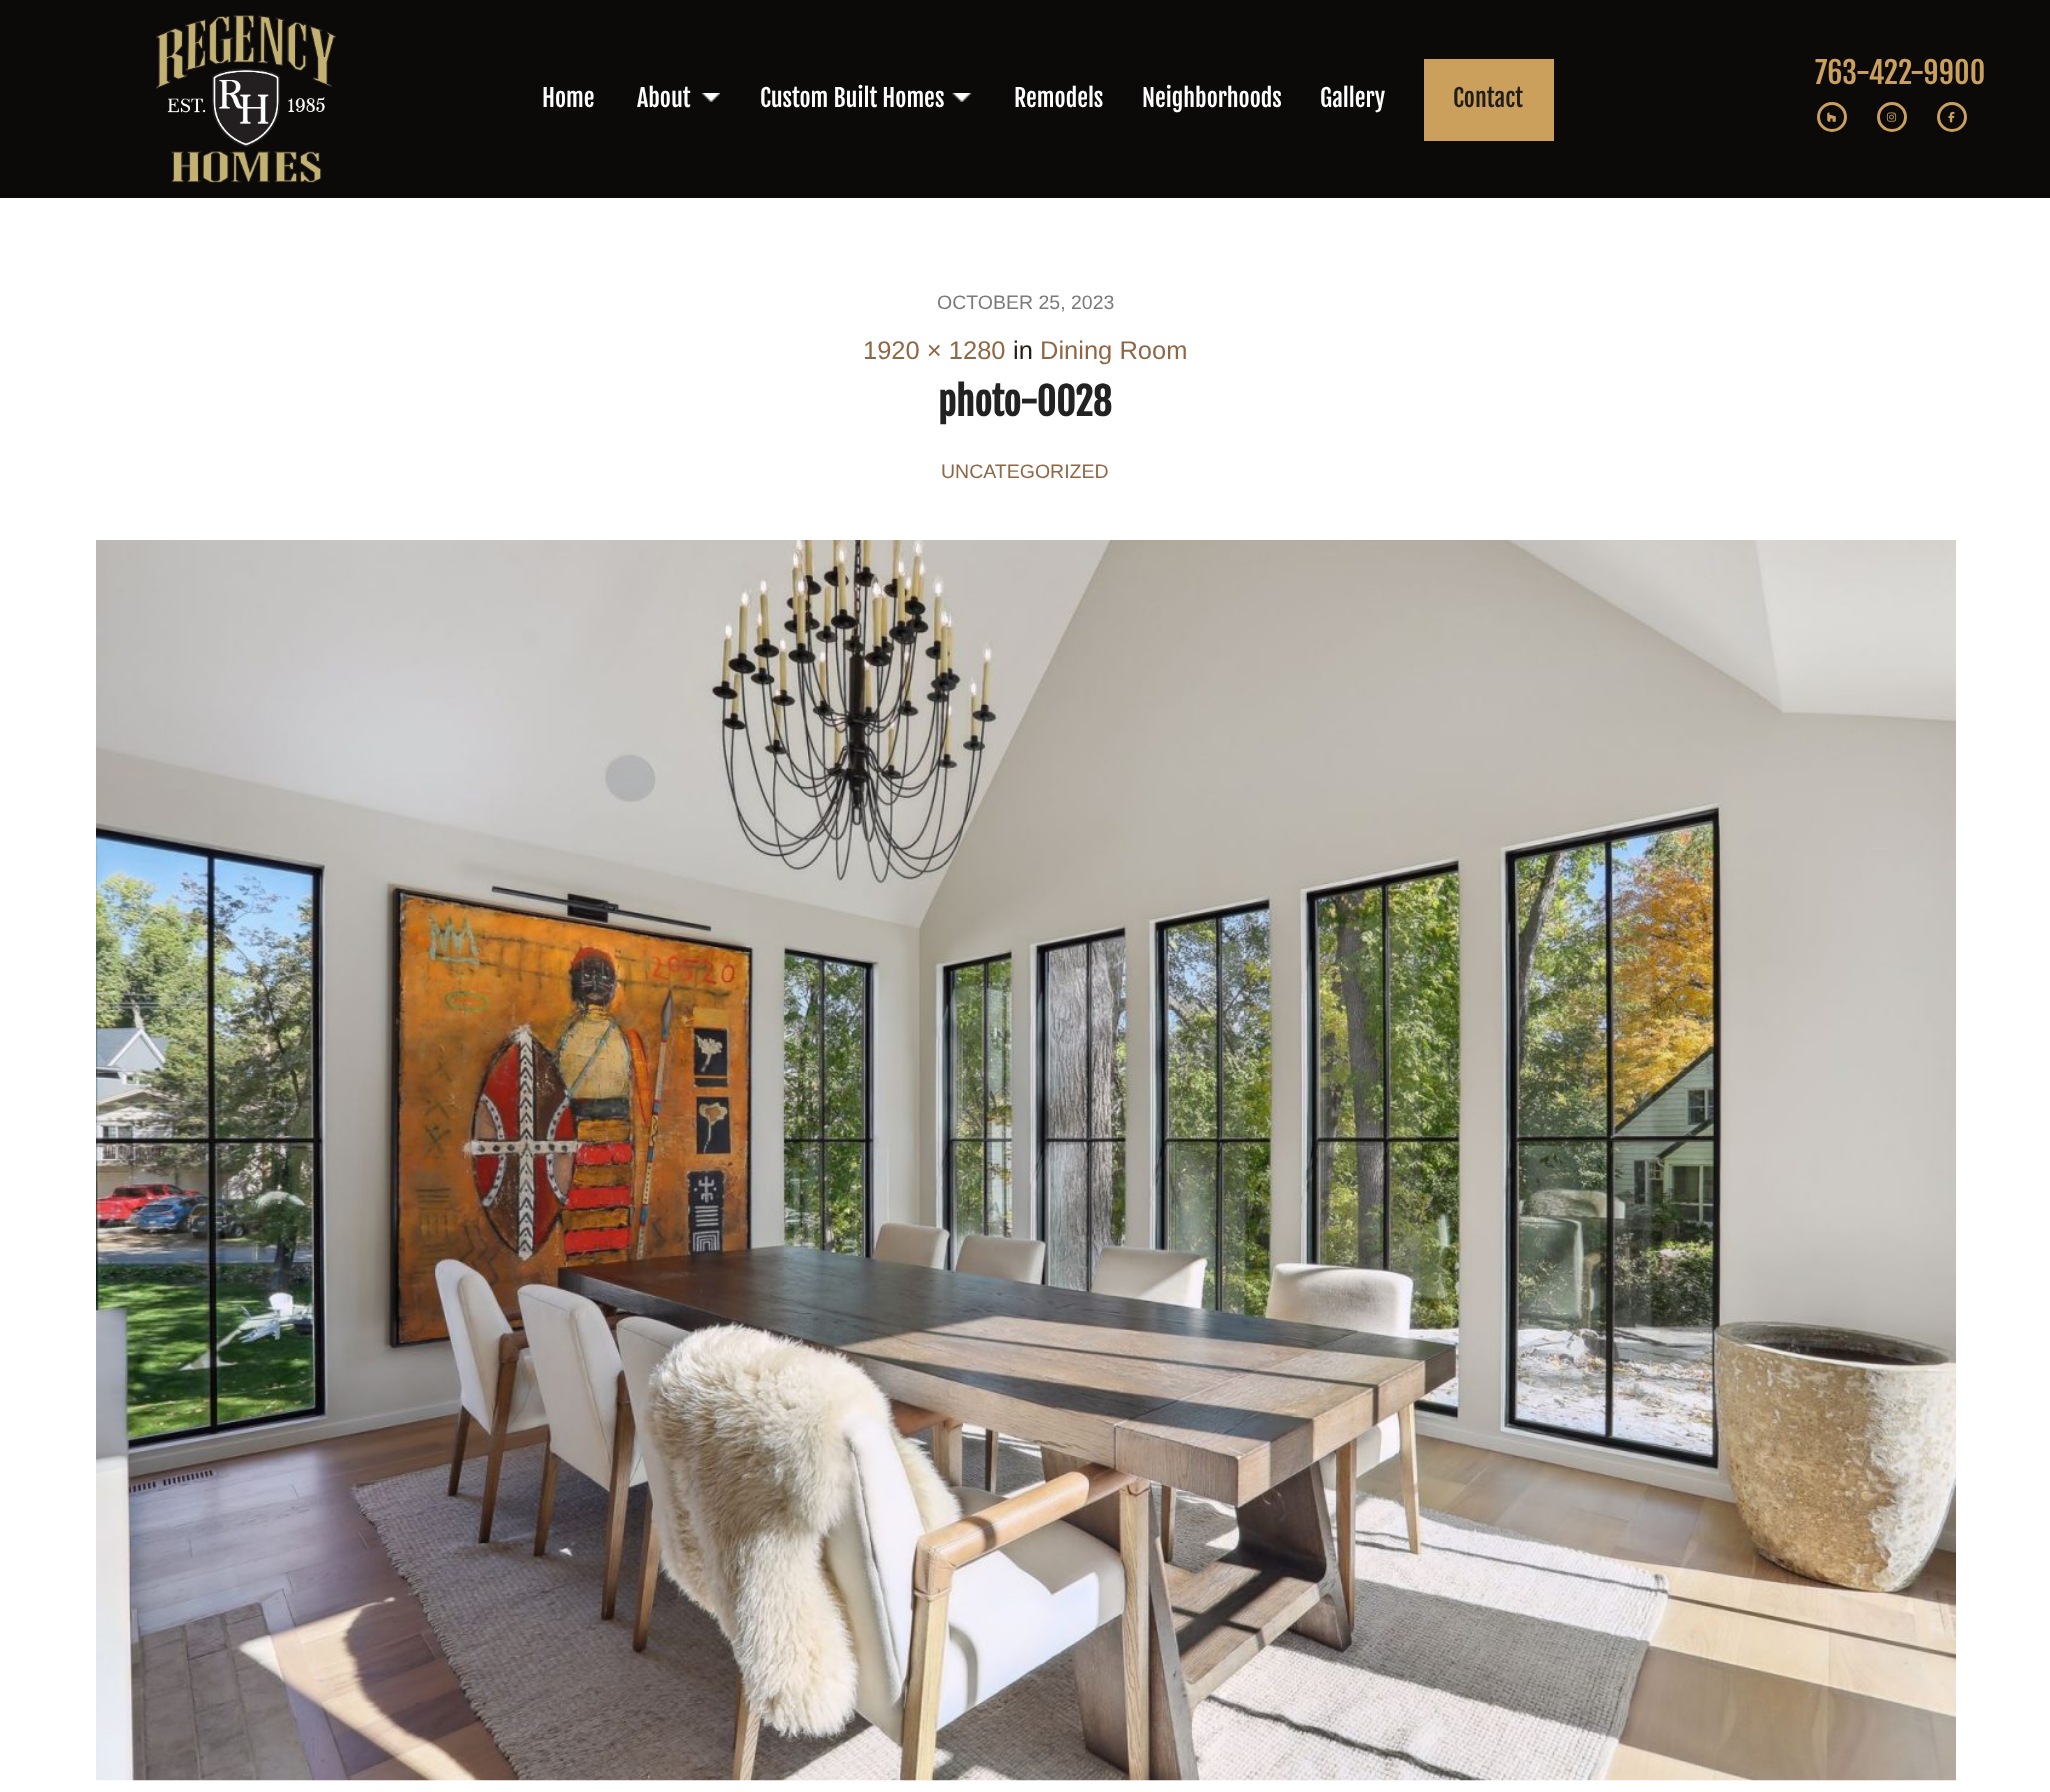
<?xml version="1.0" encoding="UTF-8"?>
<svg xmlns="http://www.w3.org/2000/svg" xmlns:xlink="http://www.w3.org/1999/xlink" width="2050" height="1792">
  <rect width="100%" height="100%" fill="#ffffff" />
  <rect width="2050" height="198" fill="#0b0a09" />
  <image x="156" y="15" width="180" height="168" xlink:href="image1.png" />
  <circle cx="1832" cy="117" r="13.5" fill="none" stroke="#caa05c" stroke-width="3" />
  <image x="1827" y="112" width="9" height="10" xlink:href="image2.png" />
  <circle cx="1892" cy="117" r="13.5" fill="none" stroke="#caa05c" stroke-width="3" />
  <image x="1886" y="112" width="11" height="10" xlink:href="image3.png" />
  <circle cx="1952" cy="117" r="13.5" fill="none" stroke="#caa05c" stroke-width="3" />
  <image x="1948" y="111" width="7" height="12" xlink:href="image4.png" />
  <image x="702" y="93" width="18" height="9" xlink:href="image5.png" />
  <image x="952" y="93" width="20" height="9" xlink:href="image6.png" />
  <rect x="1424" y="59" width="130" height="82" fill="#caa05c" />
  <image x="96" y="540" width="1860" height="1241" xlink:href="image7.png" />
  <text x="1815" y="84" style="font-family: Fjalla One; font-size: 30px; fill: #caa05c">763-422-9900</text>
  <text x="542" y="107" style="font-family: Fjalla One; font-size: 24px; fill: #ffffff">Home</text>
  <text x="637" y="107" style="font-family: Fjalla One; font-size: 24px; fill: #ffffff">About</text>
  <text x="760" y="107" style="font-family: Fjalla One; font-size: 24px; fill: #ffffff">Custom Built Homes</text>
  <text x="1014" y="107" style="font-family: Fjalla One; font-size: 24px; fill: #ffffff">Remodels</text>
  <text x="1142" y="107" style="font-family: Fjalla One; font-size: 24px; fill: #ffffff">Neighborhoods</text>
  <text x="1320" y="107" style="font-family: Fjalla One; font-size: 24px; fill: #ffffff">Gallery</text>
  <text x="1453" y="107" style="font-family: Fjalla One; font-size: 24px; fill: #221e17">Contact</text>
  <text x="937" y="309" style="font-family: Liberation Sans; font-size: 19.5px; fill: #7b7b7b">OCTOBER 25, 2023</text>
  <text x="863" y="359" style="font-family: Liberation Sans; font-size: 25.5px; fill: #906744">1920 × 1280</text>
  <text x="1013" y="359" style="font-family: Liberation Sans; font-size: 25.5px; fill: #221e17">in</text>
  <text x="1040" y="359" style="font-family: Liberation Sans; font-size: 25.5px; fill: #906744">Dining Room</text>
  <text x="938" y="416" style="font-family: Fjalla One; font-size: 37.5px; font-weight: bold; fill: #222222">photo-0028</text>
  <text x="941" y="478" style="font-family: Liberation Sans; font-size: 19.5px; fill: #906744">UNCATEGORIZED</text>
</svg>
